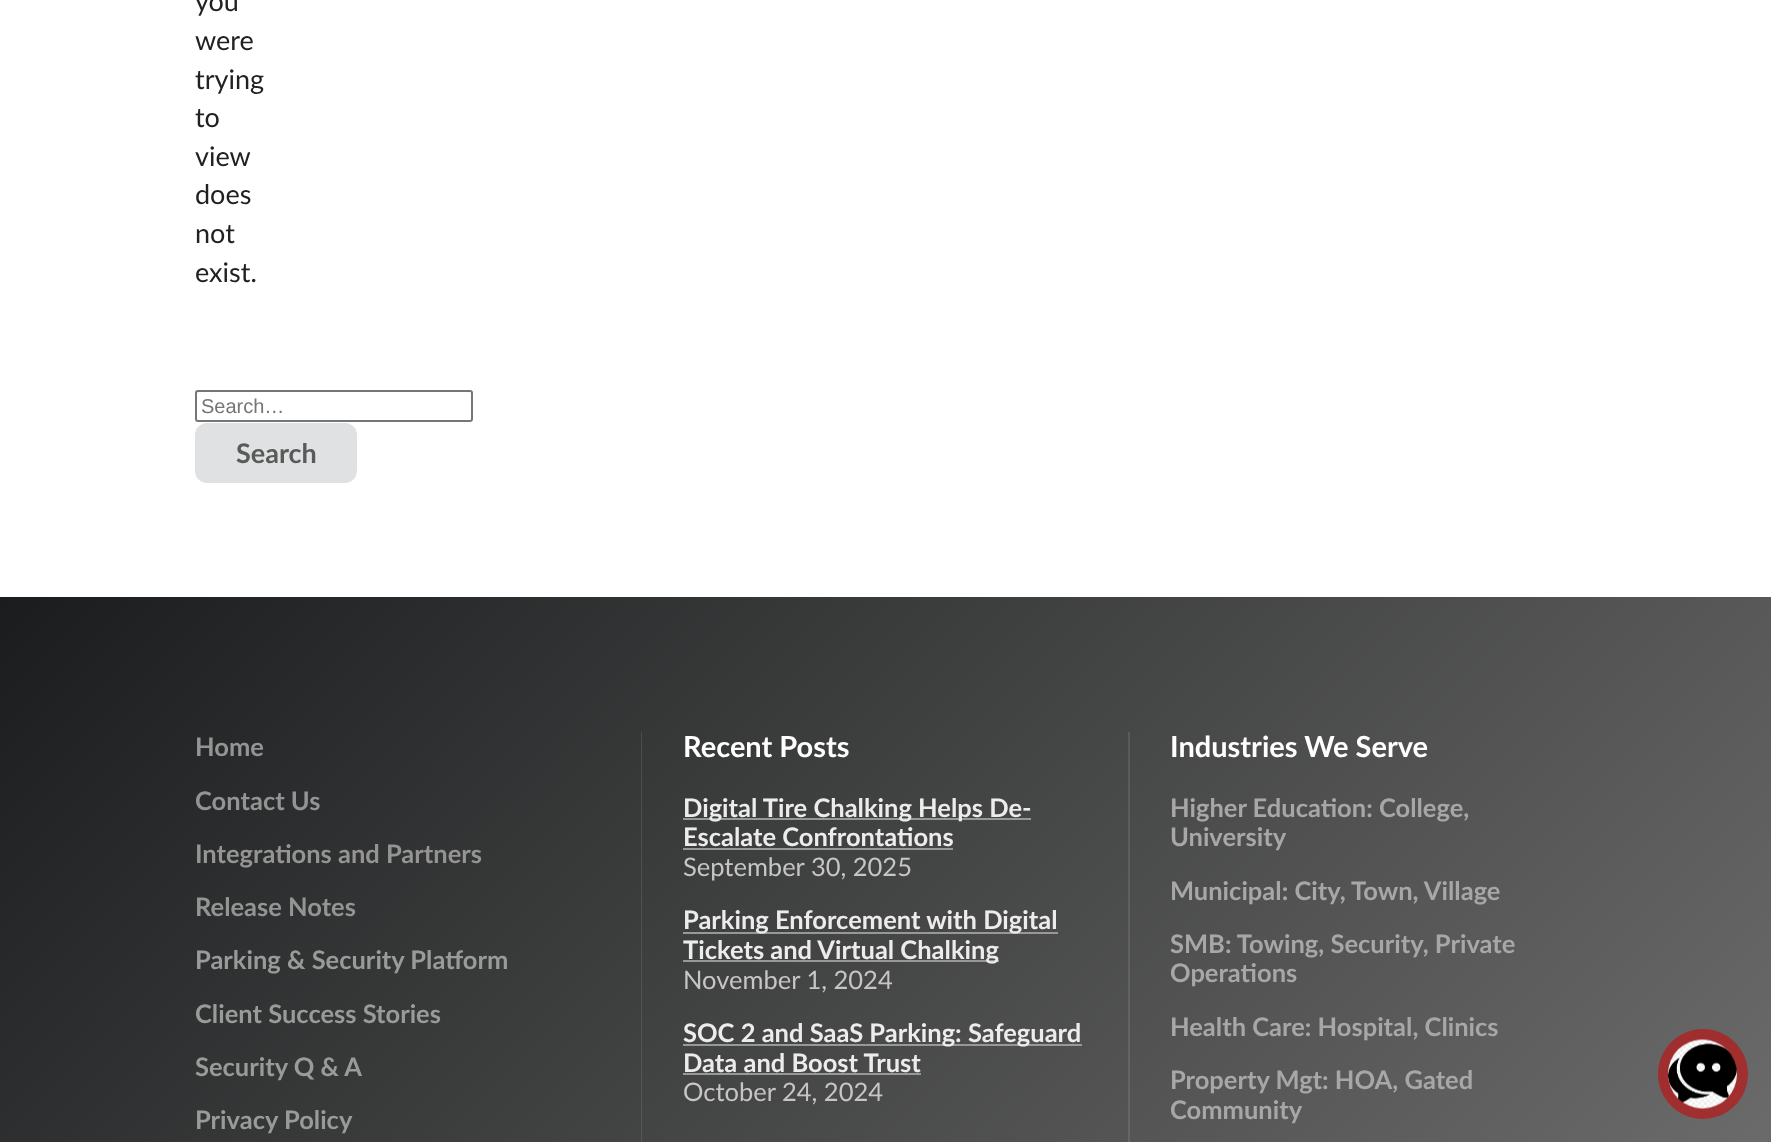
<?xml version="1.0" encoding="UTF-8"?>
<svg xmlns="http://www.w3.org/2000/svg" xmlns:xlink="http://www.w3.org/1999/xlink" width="1771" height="1142">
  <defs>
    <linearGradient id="g1" gradientUnits="userSpaceOnUse" x1="157" y1="440" x2="1614" y2="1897"><stop offset="0" stop-color="#1b1c1d" /><stop offset="1" stop-color="#7f7f7f" /></linearGradient>
    <linearGradient id="g2" gradientUnits="userSpaceOnUse" x1="157" y1="440" x2="1614" y2="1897"><stop offset="0" stop-color="#323334" /><stop offset="1" stop-color="#8c8c8c" /></linearGradient>
  </defs>
  <rect width="100%" height="100%" fill="#ffffff" />
  <rect x="196" y="391" width="276" height="30" rx="2" fill="none" stroke="#767676" stroke-width="2" />
  <rect x="195" y="423" width="162" height="60" rx="12" fill="#e0e1e2" />
  <rect y="597" width="1771" height="545" fill="url(#g1)" />
  <rect x="1128" y="732" width="2" height="410" fill="url(#g2)" />
  <rect x="641" y="732" width="1" height="410" fill="url(#g2)" />
  <rect x="683" y="818" width="348" height="2" fill="#989898" />
  <rect x="683" y="848" width="270" height="2" fill="#989898" />
  <rect x="683" y="932" width="375" height="2" fill="#989898" />
  <rect x="683" y="960" width="316" height="2" fill="#989898" />
  <rect x="683" y="1044" width="399" height="2" fill="#989898" />
  <rect x="683" y="1073" width="238" height="2" fill="#989898" />
  <circle cx="1703" cy="1074" r="45" fill="#b51c1c" fill-opacity="0.75" />
  <image x="1668" y="1039" width="69" height="70" xlink:href="image1.png" />
  <text x="195" y="11" style="font-family: Lato; font-size: 27px; fill: #212121">you</text>
  <text x="195" y="50" style="font-family: Lato; font-size: 27px; fill: #212121">were</text>
  <text x="195" y="89" style="font-family: Lato; font-size: 27px; fill: #212121">trying</text>
  <text x="195" y="127" style="font-family: Lato; font-size: 27px; fill: #212121">to</text>
  <text x="195" y="166" style="font-family: Lato; font-size: 27px; fill: #212121">view</text>
  <text x="195" y="204" style="font-family: Lato; font-size: 27px; fill: #212121">does</text>
  <text x="195" y="243" style="font-family: Lato; font-size: 27px; fill: #212121">not</text>
  <text x="195" y="282" style="font-family: Lato; font-size: 27px; fill: #212121">exist.</text>
  <text x="201" y="413" style="font-family: Liberation Sans; font-size: 20px; fill: #757575">Search…</text>
  <text x="236" y="463" style="font-family: Lato; font-size: 27px; font-weight: bold; fill: #5a5a5a">Search</text>
  <text x="195" y="756" style="font-family: Lato; font-size: 25.5px; font-weight: bold; fill: #949494">Home</text>
  <text x="195" y="810" style="font-family: Lato; font-size: 25.5px; font-weight: bold; fill: #949494">Contact Us</text>
  <text x="195" y="863" style="font-family: Lato; font-size: 25.5px; font-weight: bold; fill: #949494">Integrations and Partners</text>
  <text x="195" y="916" style="font-family: Lato; font-size: 25.5px; font-weight: bold; fill: #949494">Release Notes</text>
  <text x="195" y="969" style="font-family: Lato; font-size: 25.5px; font-weight: bold; fill: #999a9a">Parking &amp; Security Platform</text>
  <text x="195" y="1023" style="font-family: Lato; font-size: 25.5px; font-weight: bold; fill: #999a9a">Client Success Stories</text>
  <text x="195" y="1076" style="font-family: Lato; font-size: 25.5px; font-weight: bold; fill: #999a9a">Security Q &amp; A</text>
  <text x="195" y="1129" style="font-family: Lato; font-size: 25.5px; font-weight: bold; fill: #999a9a">Privacy Policy</text>
  <text x="683" y="757" style="font-family: Lato; font-size: 29px; font-weight: bold; fill: #ffffff">Recent Posts</text>
  <text x="683" y="817" style="font-family: Lato; font-size: 25.5px; font-weight: bold; fill: #ececec">Digital Tire Chalking Helps De-</text>
  <text x="683" y="846" style="font-family: Lato; font-size: 25.5px; font-weight: bold; fill: #ececec">Escalate Confrontations</text>
  <text x="683" y="876" style="font-family: Lato; font-size: 25.5px; fill: #c6c6c6">September 30, 2025</text>
  <text x="683" y="929" style="font-family: Lato; font-size: 25.5px; font-weight: bold; fill: #ececec">Parking Enforcement with Digital</text>
  <text x="683" y="959" style="font-family: Lato; font-size: 25.5px; font-weight: bold; fill: #ececec">Tickets and Virtual Chalking</text>
  <text x="683" y="989" style="font-family: Lato; font-size: 25.5px; fill: #c6c6c6">November 1, 2024</text>
  <text x="683" y="1042" style="font-family: Lato; font-size: 25.5px; font-weight: bold; fill: #ececec">SOC 2 and SaaS Parking: Safeguard</text>
  <text x="683" y="1072" style="font-family: Lato; font-size: 25.5px; font-weight: bold; fill: #ececec">Data and Boost Trust</text>
  <text x="683" y="1101" style="font-family: Lato; font-size: 25.5px; fill: #c6c6c6">October 24, 2024</text>
  <text x="1170" y="757" style="font-family: Lato; font-size: 29px; font-weight: bold; fill: #ffffff">Industries We Serve</text>
  <text x="1170" y="817" style="font-family: Lato; font-size: 25.5px; font-weight: bold; fill: #a7a7a8">Higher Education: College,</text>
  <text x="1170" y="846" style="font-family: Lato; font-size: 25.5px; font-weight: bold; fill: #a7a7a8">University</text>
  <text x="1170" y="900" style="font-family: Lato; font-size: 25.5px; font-weight: bold; fill: #a7a7a8">Municipal: City, Town, Village</text>
  <text x="1170" y="953" style="font-family: Lato; font-size: 25.5px; font-weight: bold; fill: #a7a7a8">SMB: Towing, Security, Private</text>
  <text x="1170" y="982" style="font-family: Lato; font-size: 25.5px; font-weight: bold; fill: #a7a7a8">Operations</text>
  <text x="1170" y="1036" style="font-family: Lato; font-size: 25.5px; font-weight: bold; fill: #a7a7a8">Health Care: Hospital, Clinics</text>
  <text x="1170" y="1089" style="font-family: Lato; font-size: 25.5px; font-weight: bold; fill: #a7a7a8">Property Mgt: HOA, Gated</text>
  <text x="1170" y="1119" style="font-family: Lato; font-size: 25.5px; font-weight: bold; fill: #a7a7a8">Community</text>
</svg>
